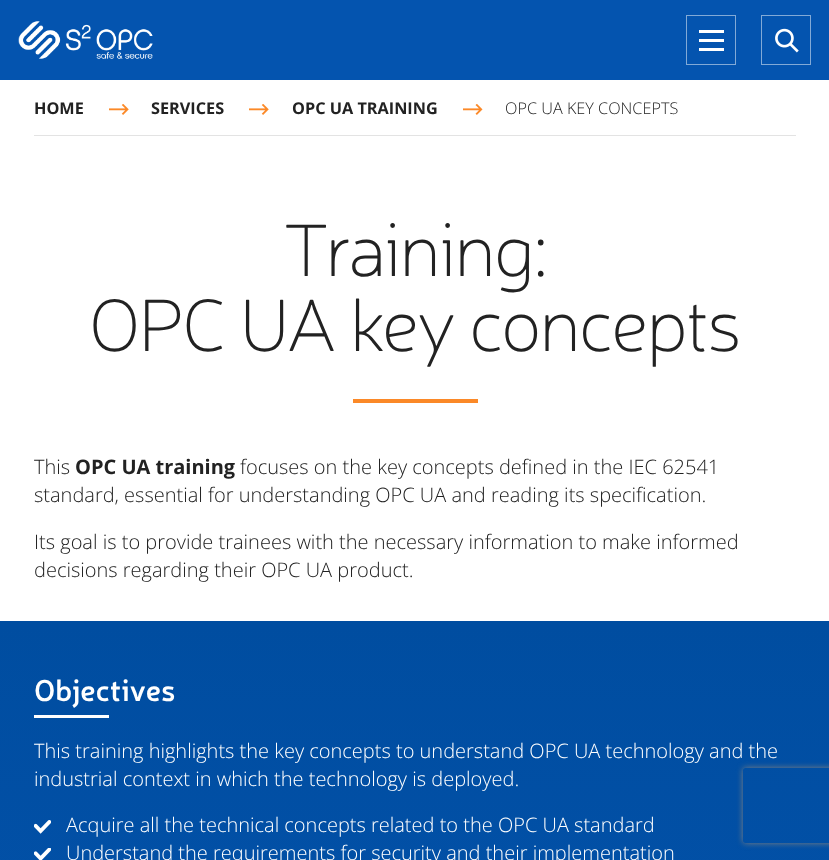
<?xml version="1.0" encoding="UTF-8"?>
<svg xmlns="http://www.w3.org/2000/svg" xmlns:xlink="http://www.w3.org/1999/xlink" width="829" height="860">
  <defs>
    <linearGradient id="g1" gradientUnits="userSpaceOnUse" x1="415" y1="621" x2="415" y2="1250"><stop offset="0" stop-color="#004da0" /><stop offset="1" stop-color="#0454af" /></linearGradient>
    <clipPath id="clip1"><path d="M 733 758 h 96 v 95 h -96 z m 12.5 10 h 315 c 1.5 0 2.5 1 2.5 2.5 v 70 c 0 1.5 -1 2.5 -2.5 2.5 h -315 c -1.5 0 -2.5 -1 -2.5 -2.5 v -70 c 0 -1.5 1 -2.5 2.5 -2.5 z" clip-rule="evenodd" /></clipPath>
  </defs>
  <rect width="100%" height="100%" fill="#ffffff" />
  <rect width="829" height="80" fill="#0454af" />
  <image x="18" y="21" width="135" height="38" xlink:href="image1.png" />
  <rect x="686.5" y="15.5" width="49" height="49" fill="none" stroke="#82aad7" />
  <rect x="699" y="30" width="25" height="3" fill="#ffffff" />
  <rect x="699" y="39" width="25" height="3" fill="#ffffff" />
  <rect x="699" y="48" width="25" height="3" fill="#ffffff" />
  <rect x="761.5" y="15.5" width="49" height="49" fill="none" stroke="#82aad7" />
  <image x="775" y="28" width="24" height="25" xlink:href="image2.png" />
  <rect x="34" y="135" width="762" height="1" fill="#e3e3e3" />
  <image x="109" y="104" width="20" height="11" xlink:href="image3.png" />
  <image x="249" y="104" width="20" height="11" xlink:href="image3.png" />
  <image x="463" y="104" width="20" height="11" xlink:href="image4.png" />
  <rect x="353" y="399" width="125" height="4" fill="#fb8928" />
  <rect y="621" width="829" height="239" fill="url(#g1)" />
  <rect x="34" y="715" width="75" height="3" fill="#ffffff" />
  <image x="34" y="820" width="17" height="14" xlink:href="image5.png" />
  <image x="34" y="848" width="17" height="12" xlink:href="image6.png" />
  <g clip-path="url(#clip1)">
    <rect x="743" y="768" width="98" height="75" rx="2.5" fill="#808080" filter="blur(3px)" />
  </g>
  <text x="34" y="114" style="font-family: Open Sans; font-size: 16.25px; font-weight: bold; fill: #222222">HOME</text>
  <text x="151" y="114" style="font-family: Open Sans; font-size: 16.25px; font-weight: bold; fill: #222222">SERVICES</text>
  <text x="292" y="114" style="font-family: Open Sans; font-size: 16.25px; font-weight: bold; fill: #222222">OPC UA TRAINING</text>
  <text x="505" y="114" style="font-family: Open Sans; font-size: 16.25px; font-weight: 300; fill: #222222">OPC UA KEY CONCEPTS</text>
  <text x="283" y="276" style="font-family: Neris; font-size: 75px; font-weight: 100; letter-spacing: -1.9px; fill: #222222">Training:</text>
  <text x="89" y="351" style="font-family: Neris; font-size: 75px; font-weight: 100; letter-spacing: -1.9px; fill: #222222">OPC UA key concepts</text>
  <text x="34" y="474" style="font-family: Open Sans; font-size: 20px; font-weight: 300; fill: #222222">This</text>
  <text x="75" y="474" style="font-family: Open Sans; font-size: 20px; font-weight: bold; fill: #222222">OPC UA training</text>
  <text x="240" y="474" style="font-family: Open Sans; font-size: 20px; font-weight: 300; fill: #222222">focuses on the key concepts defined in the IEC 62541</text>
  <text x="34" y="502" style="font-family: Open Sans; font-size: 20px; font-weight: 300; fill: #222222">standard, essential for understanding OPC UA and reading its specification.</text>
  <text x="34" y="549" style="font-family: Open Sans; font-size: 20px; font-weight: 300; fill: #222222">Its goal is to provide trainees with the necessary information to make informed</text>
  <text x="34" y="577" style="font-family: Open Sans; font-size: 20px; font-weight: 300; fill: #222222">decisions regarding their OPC UA product.</text>
  <text x="34" y="701" style="font-family: Neris; font-size: 30px; font-weight: 600; fill: #ffffff">Objectives</text>
  <text x="34" y="758" style="font-family: Open Sans; font-size: 20px; font-weight: 300; fill: #ffffff">This training highlights the key concepts to understand OPC UA technology and the</text>
  <text x="34" y="786" style="font-family: Open Sans; font-size: 20px; font-weight: 300; fill: #ffffff">industrial context in which the technology is deployed.</text>
  <text x="66" y="832" style="font-family: Open Sans; font-size: 20px; font-weight: 300; fill: #ffffff">Acquire all the technical concepts related to the OPC UA standard</text>
  <text x="66" y="860" style="font-family: Open Sans; font-size: 20px; font-weight: 300; fill: #ffffff">Understand the requirements for security and their implementation</text>
</svg>
